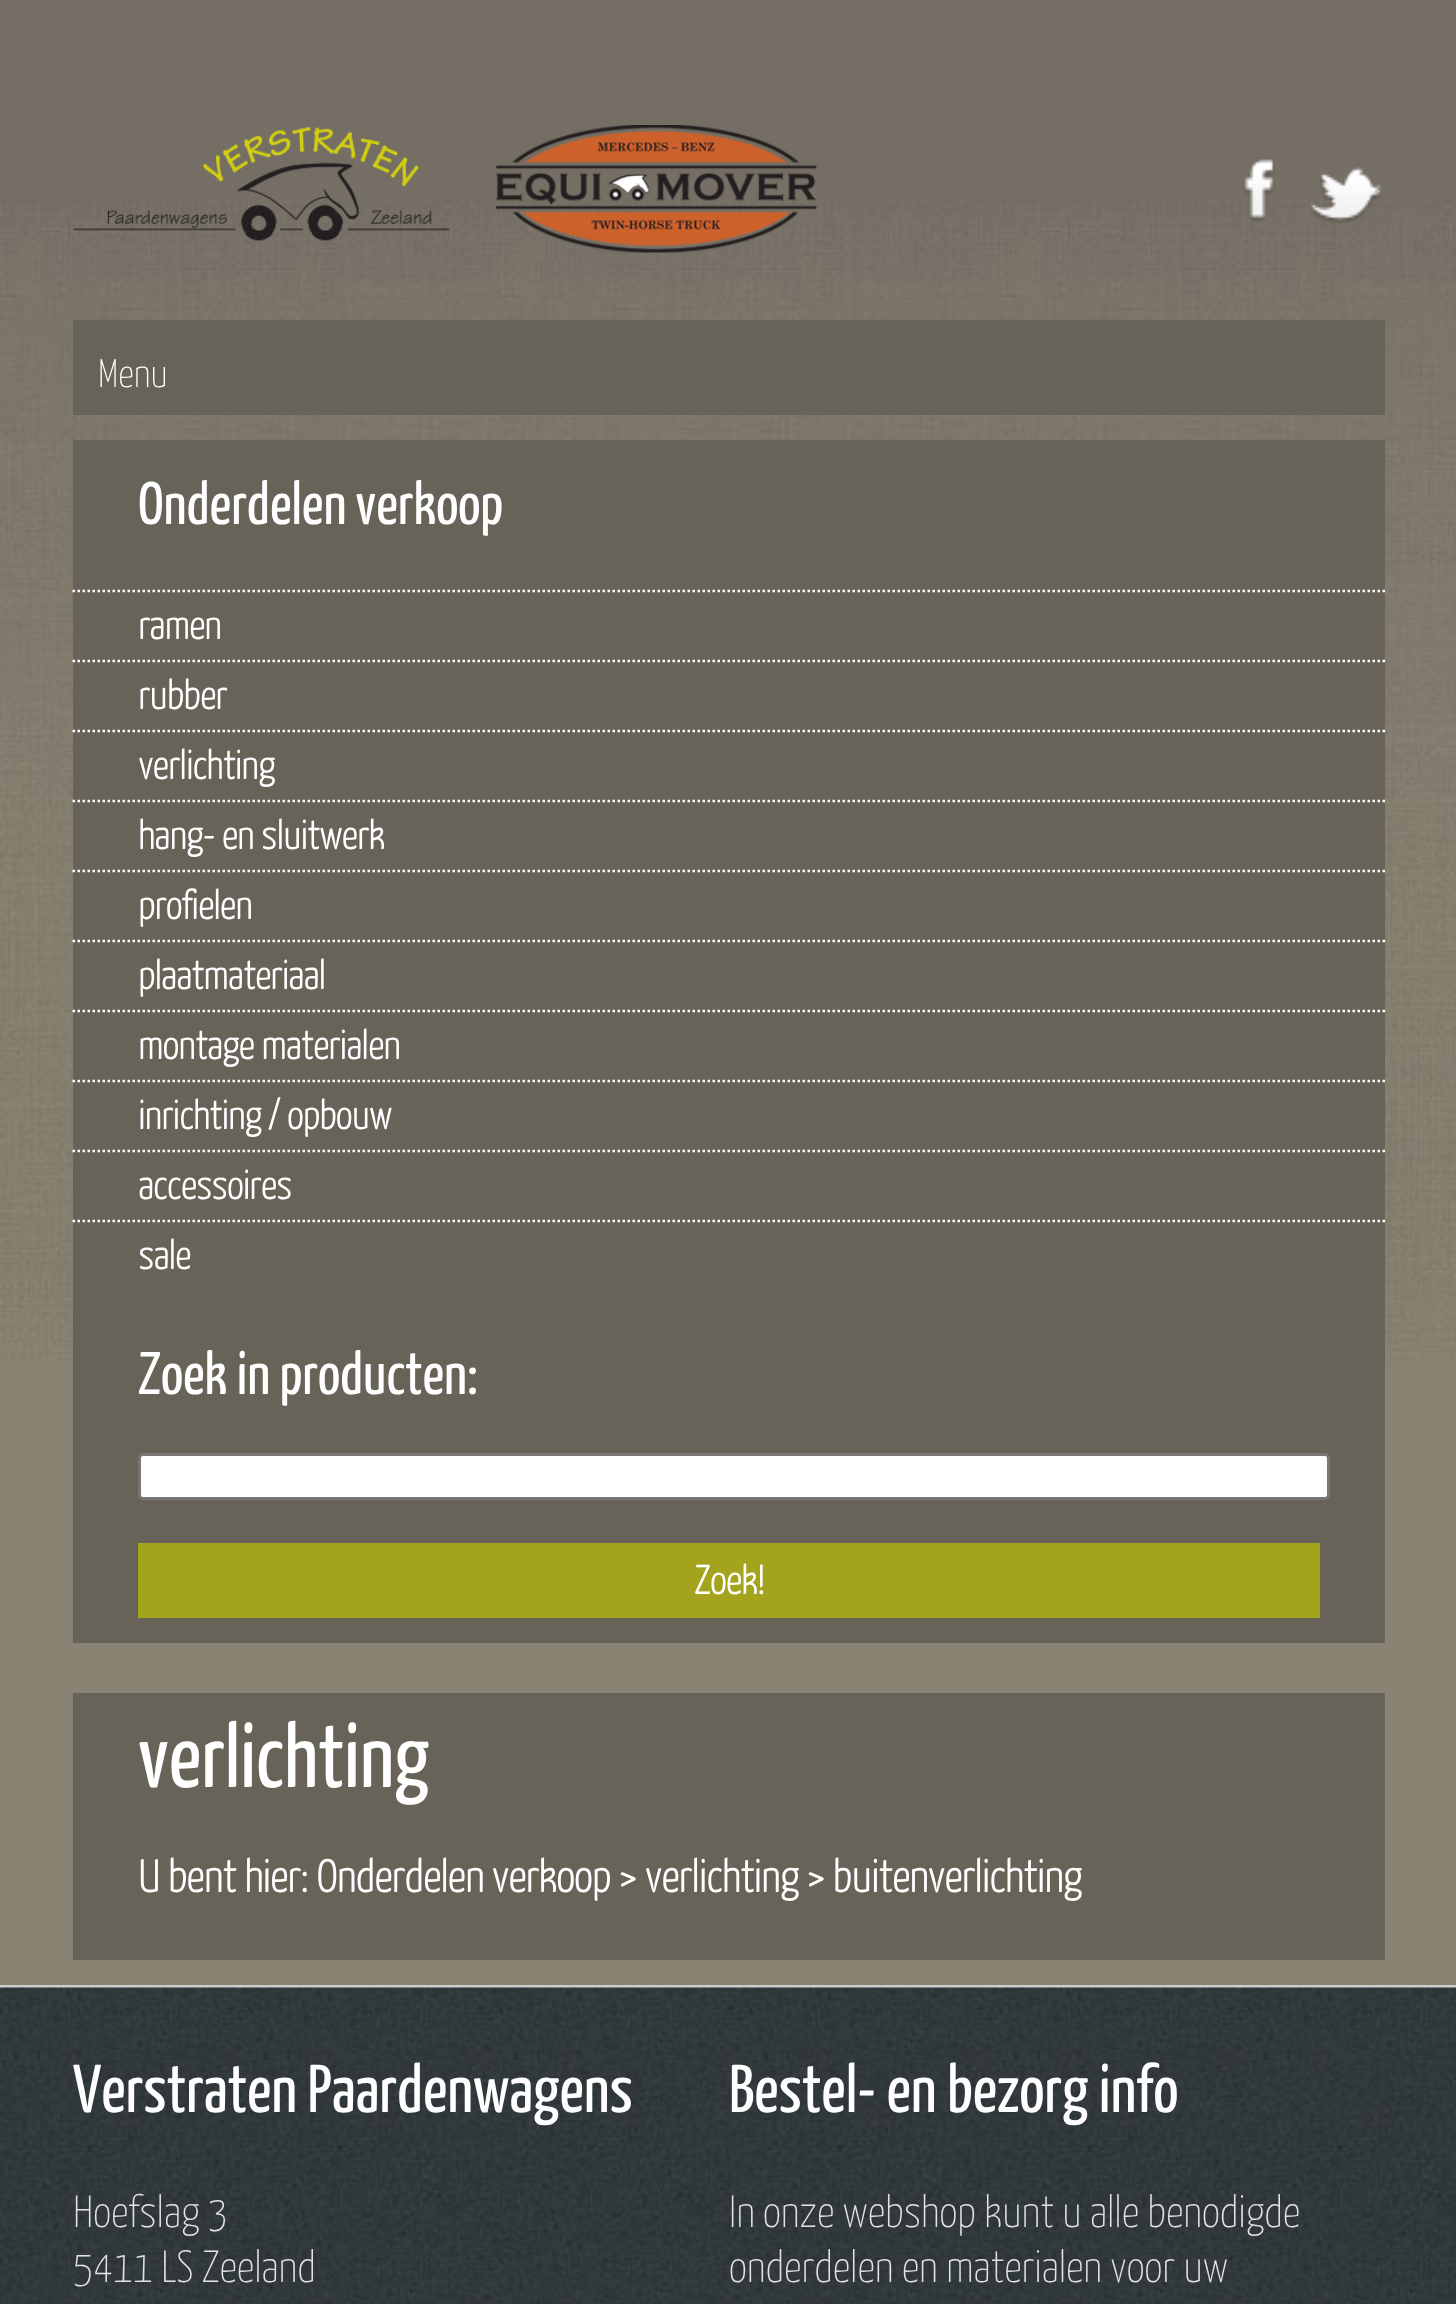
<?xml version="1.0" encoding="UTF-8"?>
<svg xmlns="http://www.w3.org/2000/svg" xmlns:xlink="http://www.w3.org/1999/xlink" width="1456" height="2304">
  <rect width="100%" height="100%" fill="#898373" />
  <image x="0" y="0" width="1456" height="1361" xlink:href="image1.png" />
  <rect y="1985" width="1456" height="3" fill="#cccccc" />
  <image x="73" y="127" width="376" height="114" xlink:href="image2.png" />
  <image x="496" y="125" width="321" height="128" xlink:href="image3.png" />
  <image x="1243" y="159" width="32" height="63" xlink:href="image4.png" />
  <image x="1310" y="167" width="71" height="57" xlink:href="image5.png" />
  <rect x="73" y="320" width="1312" height="95" fill="#686359" />
  <rect x="73" y="440" width="1312" height="1203" fill="#686359" />
  <path d="M 72.5 591 h 1312.5" fill="none" stroke="#ffffff" stroke-width="2.5" stroke-dasharray="2.5 2.5" />
  <path d="M 72.5 661 h 1312.5" fill="none" stroke="#ffffff" stroke-width="2.5" stroke-dasharray="2.5 2.5" />
  <path d="M 72.5 731 h 1312.5" fill="none" stroke="#ffffff" stroke-width="2.5" stroke-dasharray="2.5 2.5" />
  <path d="M 72.5 801 h 1312.5" fill="none" stroke="#ffffff" stroke-width="2.5" stroke-dasharray="2.5 2.5" />
  <path d="M 72.5 871 h 1312.5" fill="none" stroke="#ffffff" stroke-width="2.5" stroke-dasharray="2.5 2.5" />
  <path d="M 72.5 941 h 1312.5" fill="none" stroke="#ffffff" stroke-width="2.5" stroke-dasharray="2.5 2.5" />
  <path d="M 72.5 1011 h 1312.5" fill="none" stroke="#ffffff" stroke-width="2.5" stroke-dasharray="2.5 2.5" />
  <path d="M 72.5 1081 h 1312.5" fill="none" stroke="#ffffff" stroke-width="2.5" stroke-dasharray="2.5 2.5" />
  <path d="M 72.5 1151 h 1312.5" fill="none" stroke="#ffffff" stroke-width="2.5" stroke-dasharray="2.5 2.5" />
  <path d="M 72.5 1221 h 1312.5" fill="none" stroke="#ffffff" stroke-width="2.5" stroke-dasharray="2.5 2.5" />
  <rect x="139.5" y="1454.5" width="1189" height="44" rx="3.5" fill="#ffffff" stroke="#767676" stroke-width="3" />
  <rect x="138" y="1543" width="1182" height="75" fill="#a3a31e" />
  <rect x="73" y="1693" width="1312" height="267" fill="#686359" />
  <image x="0" y="1987" width="1456" height="317" xlink:href="image6.png" />
  <text x="98" y="387" style="font-family: Yanone Kaffeesatz; font-size: 40px; font-weight: 100; fill: #ffffff">Menu</text>
  <text x="138" y="524" style="font-family: Yanone Kaffeesatz; font-size: 60px; fill: #ffffff">Onderdelen verkoop</text>
  <text x="138" y="639" style="font-family: Yanone Kaffeesatz; font-size: 40px; font-weight: bold; fill: #ffffff">ramen</text>
  <text x="138" y="709" style="font-family: Yanone Kaffeesatz; font-size: 40px; font-weight: bold; fill: #ffffff">rubber</text>
  <text x="138" y="779" style="font-family: Yanone Kaffeesatz; font-size: 40px; font-weight: bold; fill: #ffffff">verlichting</text>
  <text x="138" y="849" style="font-family: Yanone Kaffeesatz; font-size: 40px; font-weight: bold; fill: #ffffff">hang- en sluitwerk</text>
  <text x="138" y="919" style="font-family: Yanone Kaffeesatz; font-size: 40px; font-weight: bold; fill: #ffffff">profielen</text>
  <text x="138" y="989" style="font-family: Yanone Kaffeesatz; font-size: 40px; font-weight: bold; fill: #ffffff">plaatmateriaal</text>
  <text x="138" y="1059" style="font-family: Yanone Kaffeesatz; font-size: 40px; font-weight: bold; fill: #ffffff">montage materialen</text>
  <text x="138" y="1129" style="font-family: Yanone Kaffeesatz; font-size: 40px; font-weight: bold; fill: #ffffff">inrichting / opbouw</text>
  <text x="138" y="1199" style="font-family: Yanone Kaffeesatz; font-size: 40px; font-weight: bold; fill: #ffffff">accessoires</text>
  <text x="138" y="1269" style="font-family: Yanone Kaffeesatz; font-size: 40px; font-weight: bold; fill: #ffffff">sale</text>
  <text x="138" y="1394" style="font-family: Yanone Kaffeesatz; font-size: 60px; fill: #ffffff">Zoek in producten:</text>
  <text x="694" y="1594" style="font-family: Yanone Kaffeesatz; font-size: 40px; font-weight: bold; fill: #ffffff">Zoek!</text>
  <text x="138" y="1787" style="font-family: Yanone Kaffeesatz; font-size: 90px; fill: #ffffff">verlichting</text>
  <text x="138" y="1892" style="font-family: Yanone Kaffeesatz; font-size: 45px; font-weight: bold; fill: #ffffff">U bent hier: Onderdelen verkoop &gt; verlichting &gt; buitenverlichting</text>
  <text x="73" y="2112" style="font-family: Yanone Kaffeesatz; font-size: 67.5px; fill: #ffffff">Verstraten Paardenwagens</text>
  <text x="73" y="2227" style="font-family: Yanone Kaffeesatz; font-size: 45px; font-weight: 100; fill: #e3e3e3">Hoefslag 3</text>
  <text x="73" y="2282" style="font-family: Yanone Kaffeesatz; font-size: 45px; font-weight: 100; fill: #e3e3e3">5411 LS Zeeland</text>
  <text x="729" y="2112" style="font-family: Yanone Kaffeesatz; font-size: 67.5px; fill: #ffffff">Bestel- en bezorg info</text>
  <text x="729" y="2227" style="font-family: Yanone Kaffeesatz; font-size: 45px; font-weight: 100; fill: #e3e3e3">In onze webshop kunt u alle benodigde</text>
  <text x="729" y="2282" style="font-family: Yanone Kaffeesatz; font-size: 45px; font-weight: 100; fill: #e3e3e3">onderdelen en materialen voor uw</text>
</svg>
